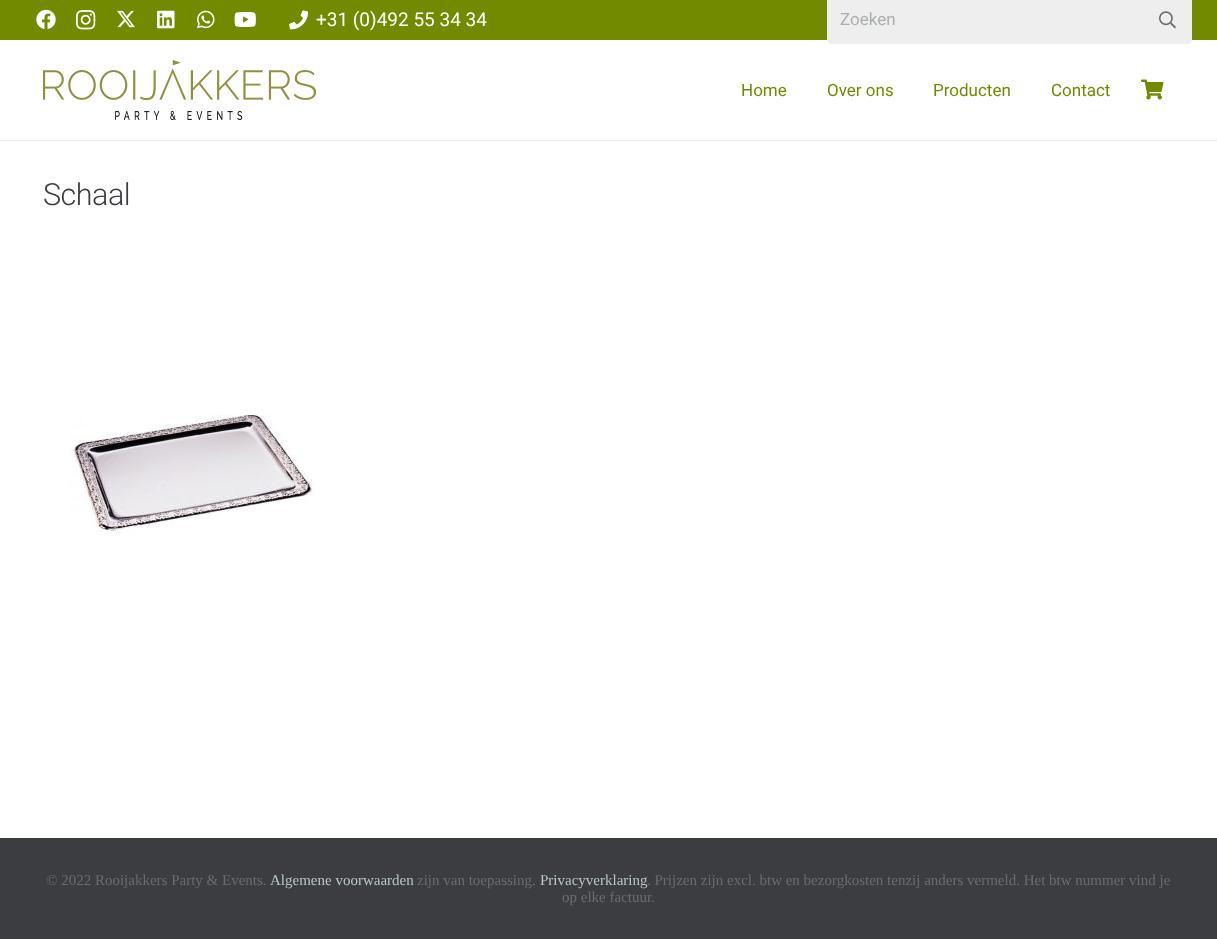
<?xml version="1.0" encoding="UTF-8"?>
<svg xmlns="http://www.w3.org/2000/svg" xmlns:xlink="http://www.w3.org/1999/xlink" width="1217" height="939">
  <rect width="100%" height="100%" fill="#ffffff" />
  <rect width="1217" height="40" fill="#728a00" />
  <image x="36" y="9" width="20" height="20" xlink:href="image1.png" />
  <image x="76" y="10" width="20" height="20" xlink:href="image2.png" />
  <image x="117" y="10" width="18" height="18" xlink:href="image3.png" />
  <image x="157" y="10" width="18" height="19" xlink:href="image4.png" />
  <image x="197" y="10" width="18" height="19" xlink:href="image5.png" />
  <image x="234" y="12" width="22" height="15" xlink:href="image6.png" />
  <image x="289" y="10" width="19" height="20" xlink:href="image7.png" />
  <rect x="827" y="-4" width="365" height="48" rx="5" fill="#eeeeee" />
  <path d="M 832 -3 h 355 c 3 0 5 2 5 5 v -1 c 0 -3 -2 -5 -5 -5 h -355 c -3 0 -5 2 -5 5 v 1 c 0 -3 2 -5 5 -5 z" fill="#d5d6d0" />
  <image x="1159" y="11" width="17" height="18" xlink:href="image8.png" />
  <rect y="140" width="1217" height="1" fill="#e9e9e9" />
  <image x="43" y="60" width="273" height="60" xlink:href="image9.png" />
  <image x="1141" y="79" width="23" height="21" xlink:href="image10.png" />
  <image x="68" y="415" width="247" height="120" xlink:href="image11.png" />
  <rect y="838" width="1217" height="101" fill="#3c3d41" />
  <text x="316" y="26" style="font-family: Roboto; font-size: 19px; fill: #ffffff">+31 (0)492 55 34 34</text>
  <text x="840" y="25" style="font-family: Roboto; font-size: 17px; fill: #aaaeaf">Zoeken</text>
  <text x="741" y="96" style="font-family: Roboto; font-size: 17px; fill: #728a00">Home</text>
  <text x="827" y="96" style="font-family: Roboto; font-size: 17px; fill: #728a00">Over ons</text>
  <text x="933" y="96" style="font-family: Roboto; font-size: 17px; fill: #728a00">Producten</text>
  <text x="1051" y="96" style="font-family: Roboto; font-size: 17px; fill: #728a00">Contact</text>
  <text x="43" y="205" style="font-family: Roboto; font-size: 30.5px; font-weight: 300; letter-spacing: -0.5px; fill: #3b3d40">Schaal</text>
  <text x="46" y="885" style="font-family: Liberation Serif; font-size: 15px; fill: #666d70">© 2022 Rooijakkers Party &amp; Events.</text>
  <text x="270" y="885" style="font-family: Liberation Serif; font-size: 15px; fill: #b8c6c7">Algemene voorwaarden</text>
  <text x="417" y="885" style="font-family: Liberation Serif; font-size: 15px; fill: #666d70">zijn van toepassing.</text>
  <text x="540" y="885" style="font-family: Liberation Serif; font-size: 15px; fill: #b8c6c7">Privacyverklaring</text>
  <text x="647" y="885" style="font-family: Liberation Serif; font-size: 15px; fill: #666d70">. Prijzen zijn excl. btw en bezorgkosten tenzij anders vermeld. Het btw nummer vind je</text>
  <text x="562" y="902" style="font-family: Liberation Serif; font-size: 15px; fill: #666d70">op elke factuur.</text>
</svg>
